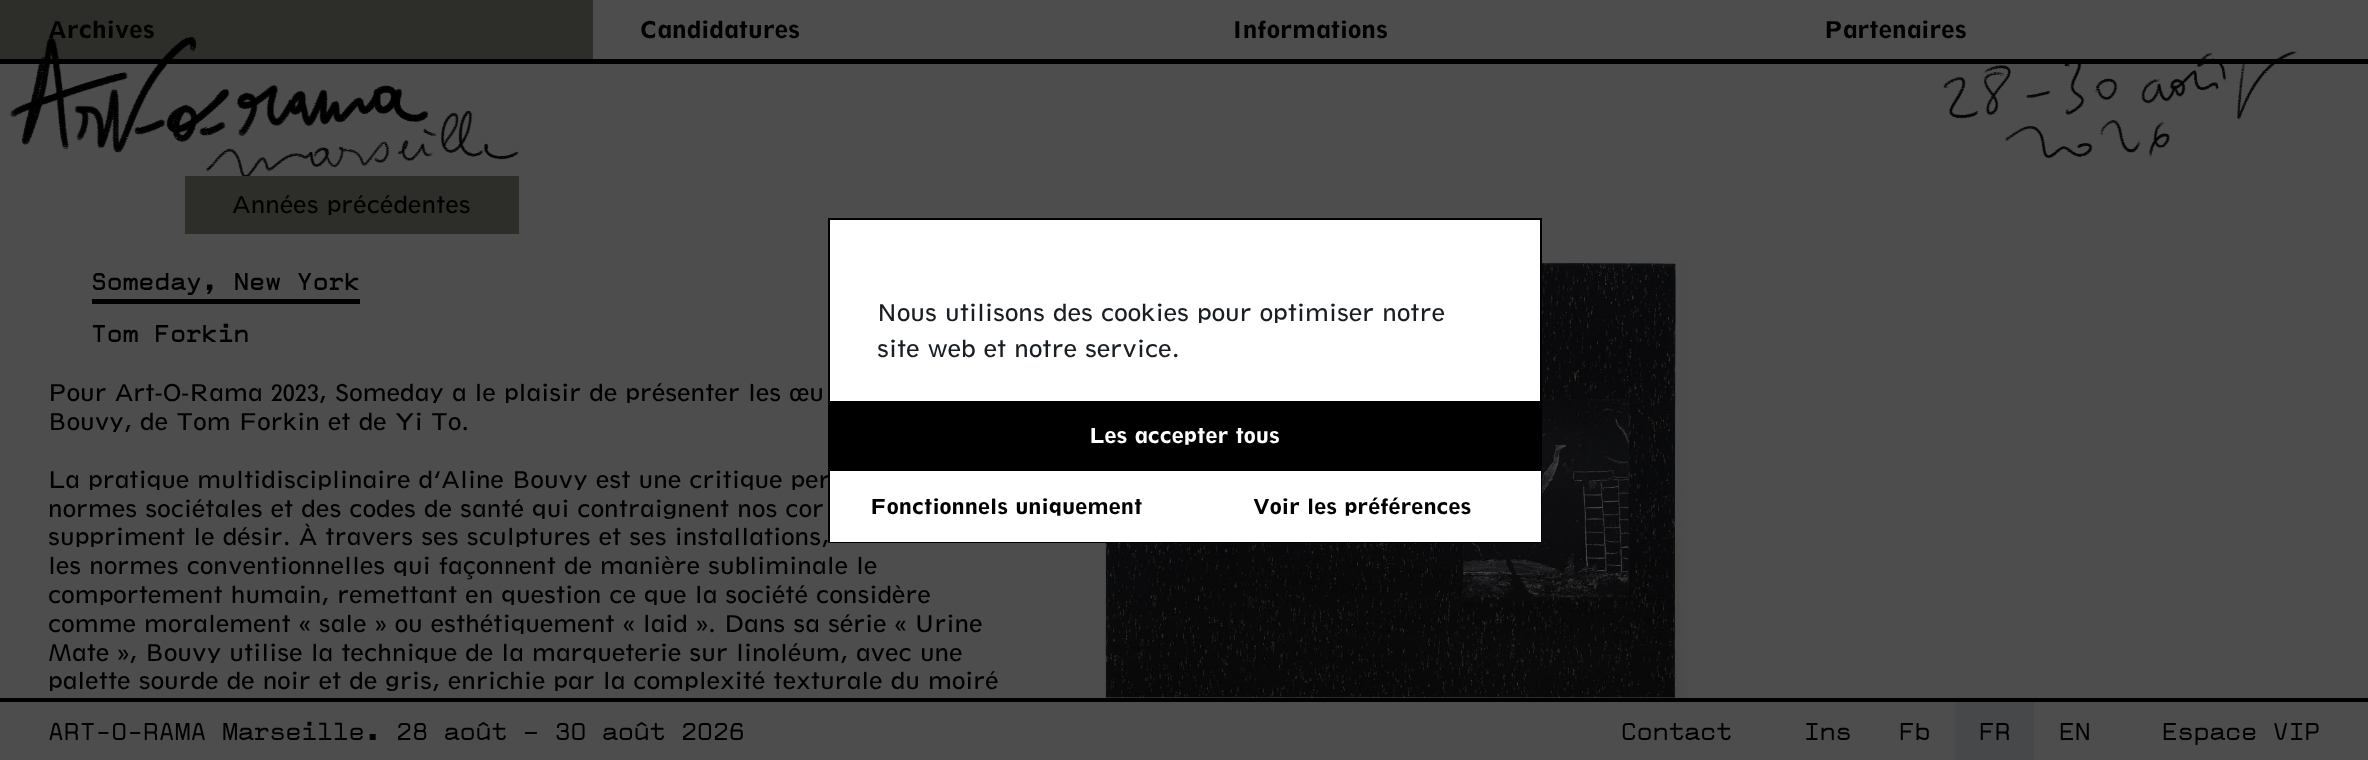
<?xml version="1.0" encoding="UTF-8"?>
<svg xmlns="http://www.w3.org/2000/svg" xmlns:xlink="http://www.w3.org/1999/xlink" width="2368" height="760">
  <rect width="100%" height="100%" fill="#4d4d4d" />
  <rect y="59" width="2368" height="5" fill="#000000" />
  <rect width="593" height="59" fill="#2d2d2a" />
  <image x="1943" y="51" width="354" height="109" xlink:href="image2.png" />
  <rect x="185" y="176" width="334" height="58" fill="#2d2d2a" />
  <rect x="92" y="299" width="268" height="5" fill="#000000" />
  <image x="1103" y="260" width="585" height="438" xlink:href="image3.png" />
  <rect x="830" y="220" width="710" height="181" fill="#ffffff" />
  <rect x="829" y="219" width="712" height="323" fill="none" stroke="#000000" stroke-width="2" />
  <rect x="830" y="401" width="710" height="70" fill="#000000" />
  <rect x="830" y="471" width="711" height="71" fill="#ffffff" />
  <rect y="698" width="2368" height="4" fill="#000000" />
  <rect x="1955" y="702" width="79" height="58" fill="#464849" />
  <text x="48" y="38" style="font-family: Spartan; font-size: 24px; font-weight: 900; fill: #000000">Archives</text>
  <text x="640" y="38" style="font-family: Spartan; font-size: 24px; font-weight: 900; fill: #000000">Candidatures</text>
  <text x="1232" y="38" style="font-family: Spartan; font-size: 24px; font-weight: 900; fill: #000000">Informations</text>
  <text x="1824" y="38" style="font-family: Spartan; font-size: 24px; font-weight: 900; fill: #000000">Partenaires</text>
  <image x="10" y="36" width="509" height="140" xlink:href="image1.png" />
  <text x="232" y="213" style="font-family: Spartan; font-size: 24px; fill: #000000">Années précédentes</text>
  <text x="91" y="290" style="font-family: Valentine; font-size: 24px; fill: #000000">Someday, New York</text>
  <text x="91" y="342" style="font-family: Valentine; font-size: 24px; fill: #000000">Tom Forkin</text>
  <text x="48" y="401" style="font-family: Spartan; font-size: 24px; fill: #000000">Pour Art-O-Rama 2023, Someday a le plaisir de présenter les œu</text>
  <text x="48" y="430" style="font-family: Spartan; font-size: 24px; fill: #000000">Bouvy, de Tom Forkin et de Yi To.</text>
  <text x="48" y="488" style="font-family: Spartan; font-size: 24px; fill: #000000">La pratique multidisciplinaire d’Aline Bouvy est une critique per</text>
  <text x="48" y="517" style="font-family: Spartan; font-size: 24px; fill: #000000">normes sociétales et des codes de santé qui contraignent nos cor</text>
  <text x="48" y="545" style="font-family: Spartan; font-size: 24px; fill: #000000">suppriment le désir. À travers ses sculptures et ses installations,</text>
  <text x="48" y="574" style="font-family: Spartan; font-size: 24px; fill: #000000">les normes conventionnelles qui façonnent de manière subliminale le</text>
  <text x="48" y="603" style="font-family: Spartan; font-size: 24px; fill: #000000">comportement humain, remettant en question ce que la société considère</text>
  <text x="48" y="632" style="font-family: Spartan; font-size: 24px; fill: #000000">comme moralement « sale » ou esthétiquement « laid ». Dans sa série « Urine</text>
  <text x="48" y="661" style="font-family: Spartan; font-size: 24px; fill: #000000">Mate », Bouvy utilise la technique de la marqueterie sur linoléum, avec une</text>
  <text x="48" y="689" style="font-family: Spartan; font-size: 24px; fill: #000000">palette sourde de noir et de gris, enrichie par la complexité texturale du moiré</text>
  <text x="877" y="321" style="font-family: Spartan; font-size: 24px; fill: #191e23">Nous utilisons des cookies pour optimiser notre</text>
  <text x="877" y="357" style="font-family: Spartan; font-size: 24px; fill: #191e23">site web et notre service.</text>
  <text x="1089" y="443" style="font-family: Spartan; font-size: 21.6px; font-weight: 900; fill: #ffffff">Les accepter tous</text>
  <text x="870" y="514" style="font-family: Spartan; font-size: 21.6px; font-weight: 900; fill: #000000">Fonctionnels uniquement</text>
  <text x="1253" y="514" style="font-family: Spartan; font-size: 21.6px; font-weight: 900; fill: #000000">Voir les préférences</text>
  <text x="48" y="740" style="font-family: 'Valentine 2'; font-size: 24px; fill: #000000">ART-O-RAMA Marseille. 28 août – 30 août 2026</text>
  <text x="1621" y="740" style="font-family: 'Valentine 2'; font-size: 24px; fill: #000000">Contact</text>
  <text x="1804" y="740" style="font-family: 'Valentine 2'; font-size: 24px; fill: #000000">Ins</text>
  <text x="1899" y="740" style="font-family: 'Valentine 2'; font-size: 24px; fill: #000000">Fb</text>
  <text x="1979" y="740" style="font-family: 'Valentine 2'; font-size: 24px; fill: #000000">FR</text>
  <text x="2059" y="740" style="font-family: 'Valentine 2'; font-size: 24px; fill: #000000">EN</text>
  <text x="2162" y="740" style="font-family: 'Valentine 2'; font-size: 24px; fill: #000000">Espace VIP</text>
</svg>
